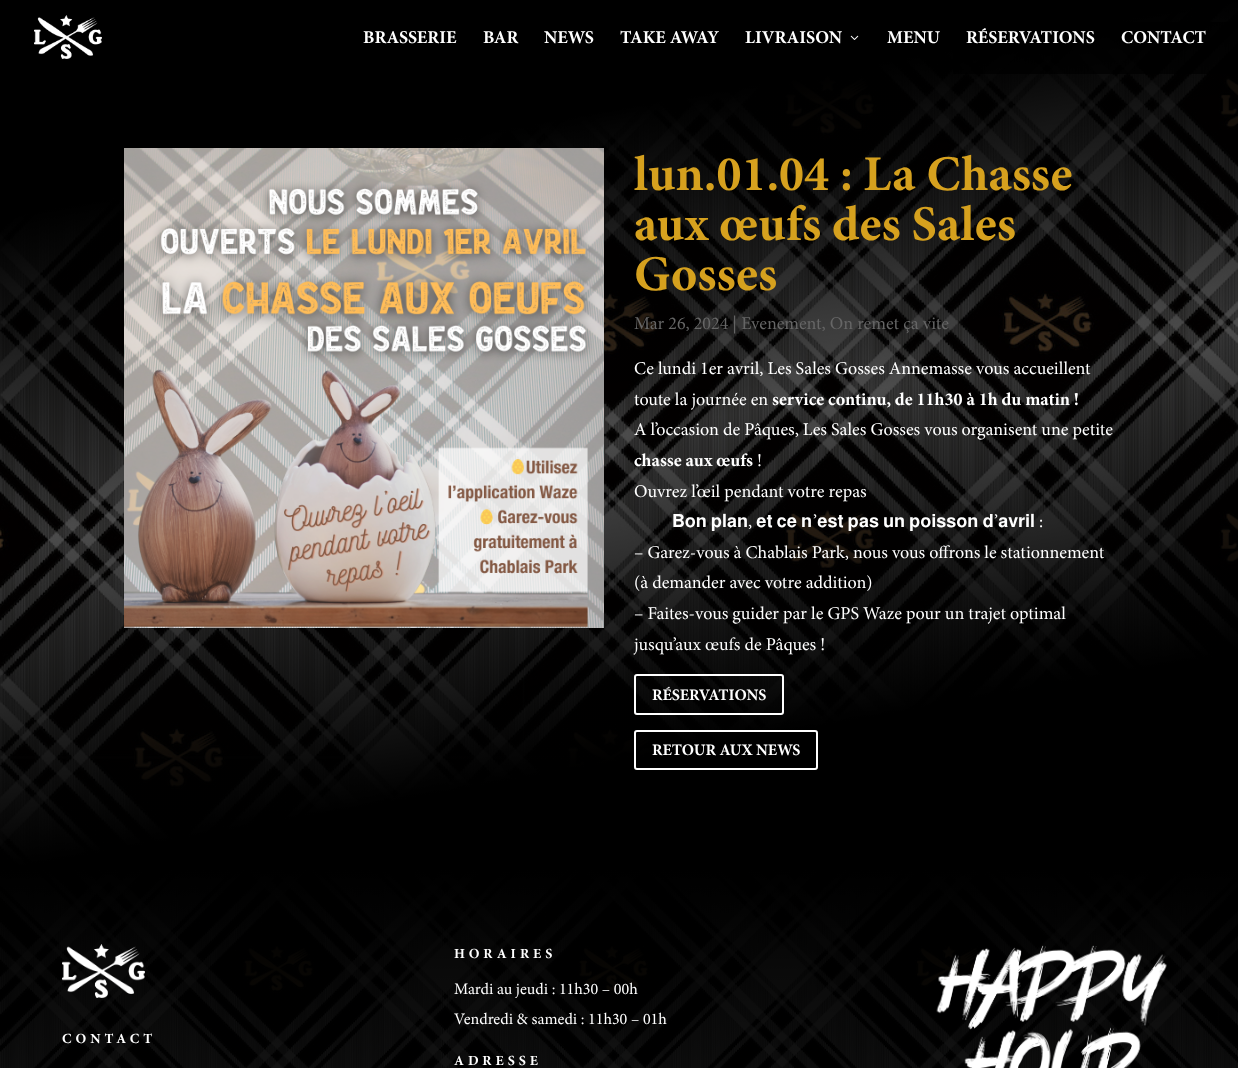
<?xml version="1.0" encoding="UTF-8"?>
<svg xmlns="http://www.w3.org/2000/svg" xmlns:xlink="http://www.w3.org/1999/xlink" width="1238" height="1068">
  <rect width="100%" height="100%" fill="#ffffff" />
  <image x="0" y="0" width="1238" height="870" xlink:href="image3.png" />
  <rect x="953" y="22" width="285" height="52" fill="#000000" fill-opacity="0.7" />
  <image x="34" y="15" width="68" height="44" xlink:href="image1.png" />
  <image x="850" y="35" width="9" height="5" xlink:href="image2.png" />
  <image x="124" y="148" width="480" height="480" xlink:href="image4.png" />
  <rect x="635" y="675" width="148" height="39" rx="2" fill="none" stroke="#ffffff" stroke-width="2" />
  <rect x="635" y="731" width="182" height="38" rx="2" fill="none" stroke="#ffffff" stroke-width="2" />
  <image x="0" y="870" width="1238" height="198" xlink:href="image5.png" />
  <image x="62" y="944" width="83" height="54" xlink:href="image6.png" />
  <image x="936" y="945" width="231" height="123" xlink:href="image7.png" />
  <text x="363" y="43" style="font-family: Minion; font-size: 18px; font-weight: bold; fill: #ffffff">BRASSERIE</text>
  <text x="483" y="43" style="font-family: Minion; font-size: 18px; font-weight: bold; fill: #ffffff">BAR</text>
  <text x="544" y="43" style="font-family: Minion; font-size: 18px; font-weight: bold; fill: #ffffff">NEWS</text>
  <text x="620" y="43" style="font-family: Minion; font-size: 18px; font-weight: bold; fill: #ffffff">TAKE AWAY</text>
  <text x="745" y="43" style="font-family: Minion; font-size: 18px; font-weight: bold; fill: #ffffff">LIVRAISON</text>
  <text x="887" y="43" style="font-family: Minion; font-size: 18px; font-weight: bold; fill: #ffffff">MENU</text>
  <text x="966" y="43" style="font-family: Minion; font-size: 18px; font-weight: bold; fill: #ffffff">RÉSERVATIONS</text>
  <text x="1121" y="43" style="font-family: Minion; font-size: 18px; font-weight: bold; fill: #ffffff">CONTACT</text>
  <text x="634" y="190" style="font-family: Minion; font-size: 50px; font-weight: bold; fill: #d6a11e">lun.01.04 : La Chasse</text>
  <text x="634" y="240" style="font-family: Minion; font-size: 50px; font-weight: bold; fill: #d6a11e">aux œufs des Sales</text>
  <text x="634" y="290" style="font-family: Minion; font-size: 50px; font-weight: bold; fill: #d6a11e">Gosses</text>
  <text x="634" y="329" style="font-family: Minion; font-size: 18px; fill: #666666">Mar 26, 2024 | Evenement, On remet ça vite</text>
  <text x="634" y="374" style="font-family: Minion; font-size: 18px; fill: #ffffff">Ce lundi 1er avril, Les Sales Gosses Annemasse vous accueillent</text>
  <text x="634" y="405" style="font-family: Minion; font-size: 18px; fill: #ffffff">toute la journée en</text>
  <text x="772" y="405" style="font-family: Minion; font-size: 18px; font-weight: bold; fill: #ffffff">service continu, de 11h30 à 1h du matin !</text>
  <text x="634" y="435" style="font-family: Minion; font-size: 18px; fill: #ffffff">A l’occasion de Pâques, Les Sales Gosses vous organisent une petite</text>
  <text x="634" y="466" style="font-family: Minion; font-size: 18px; font-weight: bold; fill: #ffffff">chasse aux œufs</text>
  <text x="757" y="466" style="font-family: Minion; font-size: 18px; fill: #ffffff">!</text>
  <text x="634" y="497" style="font-family: Minion; font-size: 18px; fill: #ffffff">Ouvrez l’œil pendant votre repas</text>
  <text x="672" y="527" word-spacing="-0.5" style="font-family: FreeSans; font-size: 18px; fill: #ffffff">𝐁𝐨𝐧 𝐩𝐥𝐚𝐧</text>
  <text x="756" y="527" word-spacing="-0.5" style="font-family: FreeSans; font-size: 18px; fill: #ffffff">𝐞𝐭 𝐜𝐞 𝐧</text>
  <text x="813" y="527" style="font-family: Minion; font-size: 18px; fill: #ffffff">’</text>
  <text x="817" y="527" word-spacing="-0.5" style="font-family: FreeSans; font-size: 18px; fill: #ffffff">𝐞𝐬𝐭 𝐩𝐚𝐬 𝐮𝐧 𝐩𝐨𝐢𝐬𝐬𝐨𝐧 𝐝</text>
  <text x="994" y="527" style="font-family: Minion; font-size: 18px; fill: #ffffff">’</text>
  <text x="998" y="527" style="font-family: FreeSans; font-size: 18px; fill: #ffffff">𝐚𝐯𝐫𝐢𝐥</text>
  <text x="748" y="527" style="font-family: Minion; font-size: 18px; fill: #ffffff">,</text>
  <text x="1039" y="527" style="font-family: Minion; font-size: 18px; fill: #ffffff">:</text>
  <text x="634" y="558" style="font-family: Minion; font-size: 18px; fill: #ffffff">– Garez-vous à Chablais Park, nous vous offrons le stationnement</text>
  <text x="634" y="588" style="font-family: Minion; font-size: 18px; fill: #ffffff">(à demander avec votre addition)</text>
  <text x="634" y="619" style="font-family: Minion; font-size: 18px; fill: #ffffff">– Faites-vous guider par le GPS Waze pour un trajet optimal</text>
  <text x="634" y="650" style="font-family: Minion; font-size: 18px; fill: #ffffff">jusqu’aux œufs de Pâques !</text>
  <text x="652" y="700" style="font-family: Minion; font-size: 16px; font-weight: bold; fill: #ffffff">RÉSERVATIONS</text>
  <text x="652" y="755" style="font-family: Minion; font-size: 16px; font-weight: bold; fill: #ffffff">RETOUR AUX NEWS</text>
  <text x="62" y="1043" style="font-family: Minion; font-size: 14px; font-weight: bold; letter-spacing: 4px; fill: #ffffff">CONTACT</text>
  <text x="454" y="958" style="font-family: Minion; font-size: 14px; font-weight: bold; letter-spacing: 4px; fill: #ffffff">HORAIRES</text>
  <text x="454" y="994" style="font-family: Minion; font-size: 16px; fill: #ffffff">Mardi au jeudi : 11h30 – 00h</text>
  <text x="454" y="1024" style="font-family: Minion; font-size: 16px; fill: #ffffff">Vendredi &amp; samedi : 11h30 – 01h</text>
  <text x="454" y="1065" style="font-family: Minion; font-size: 14px; font-weight: bold; letter-spacing: 4px; fill: #ffffff">ADRESSE</text>
</svg>
